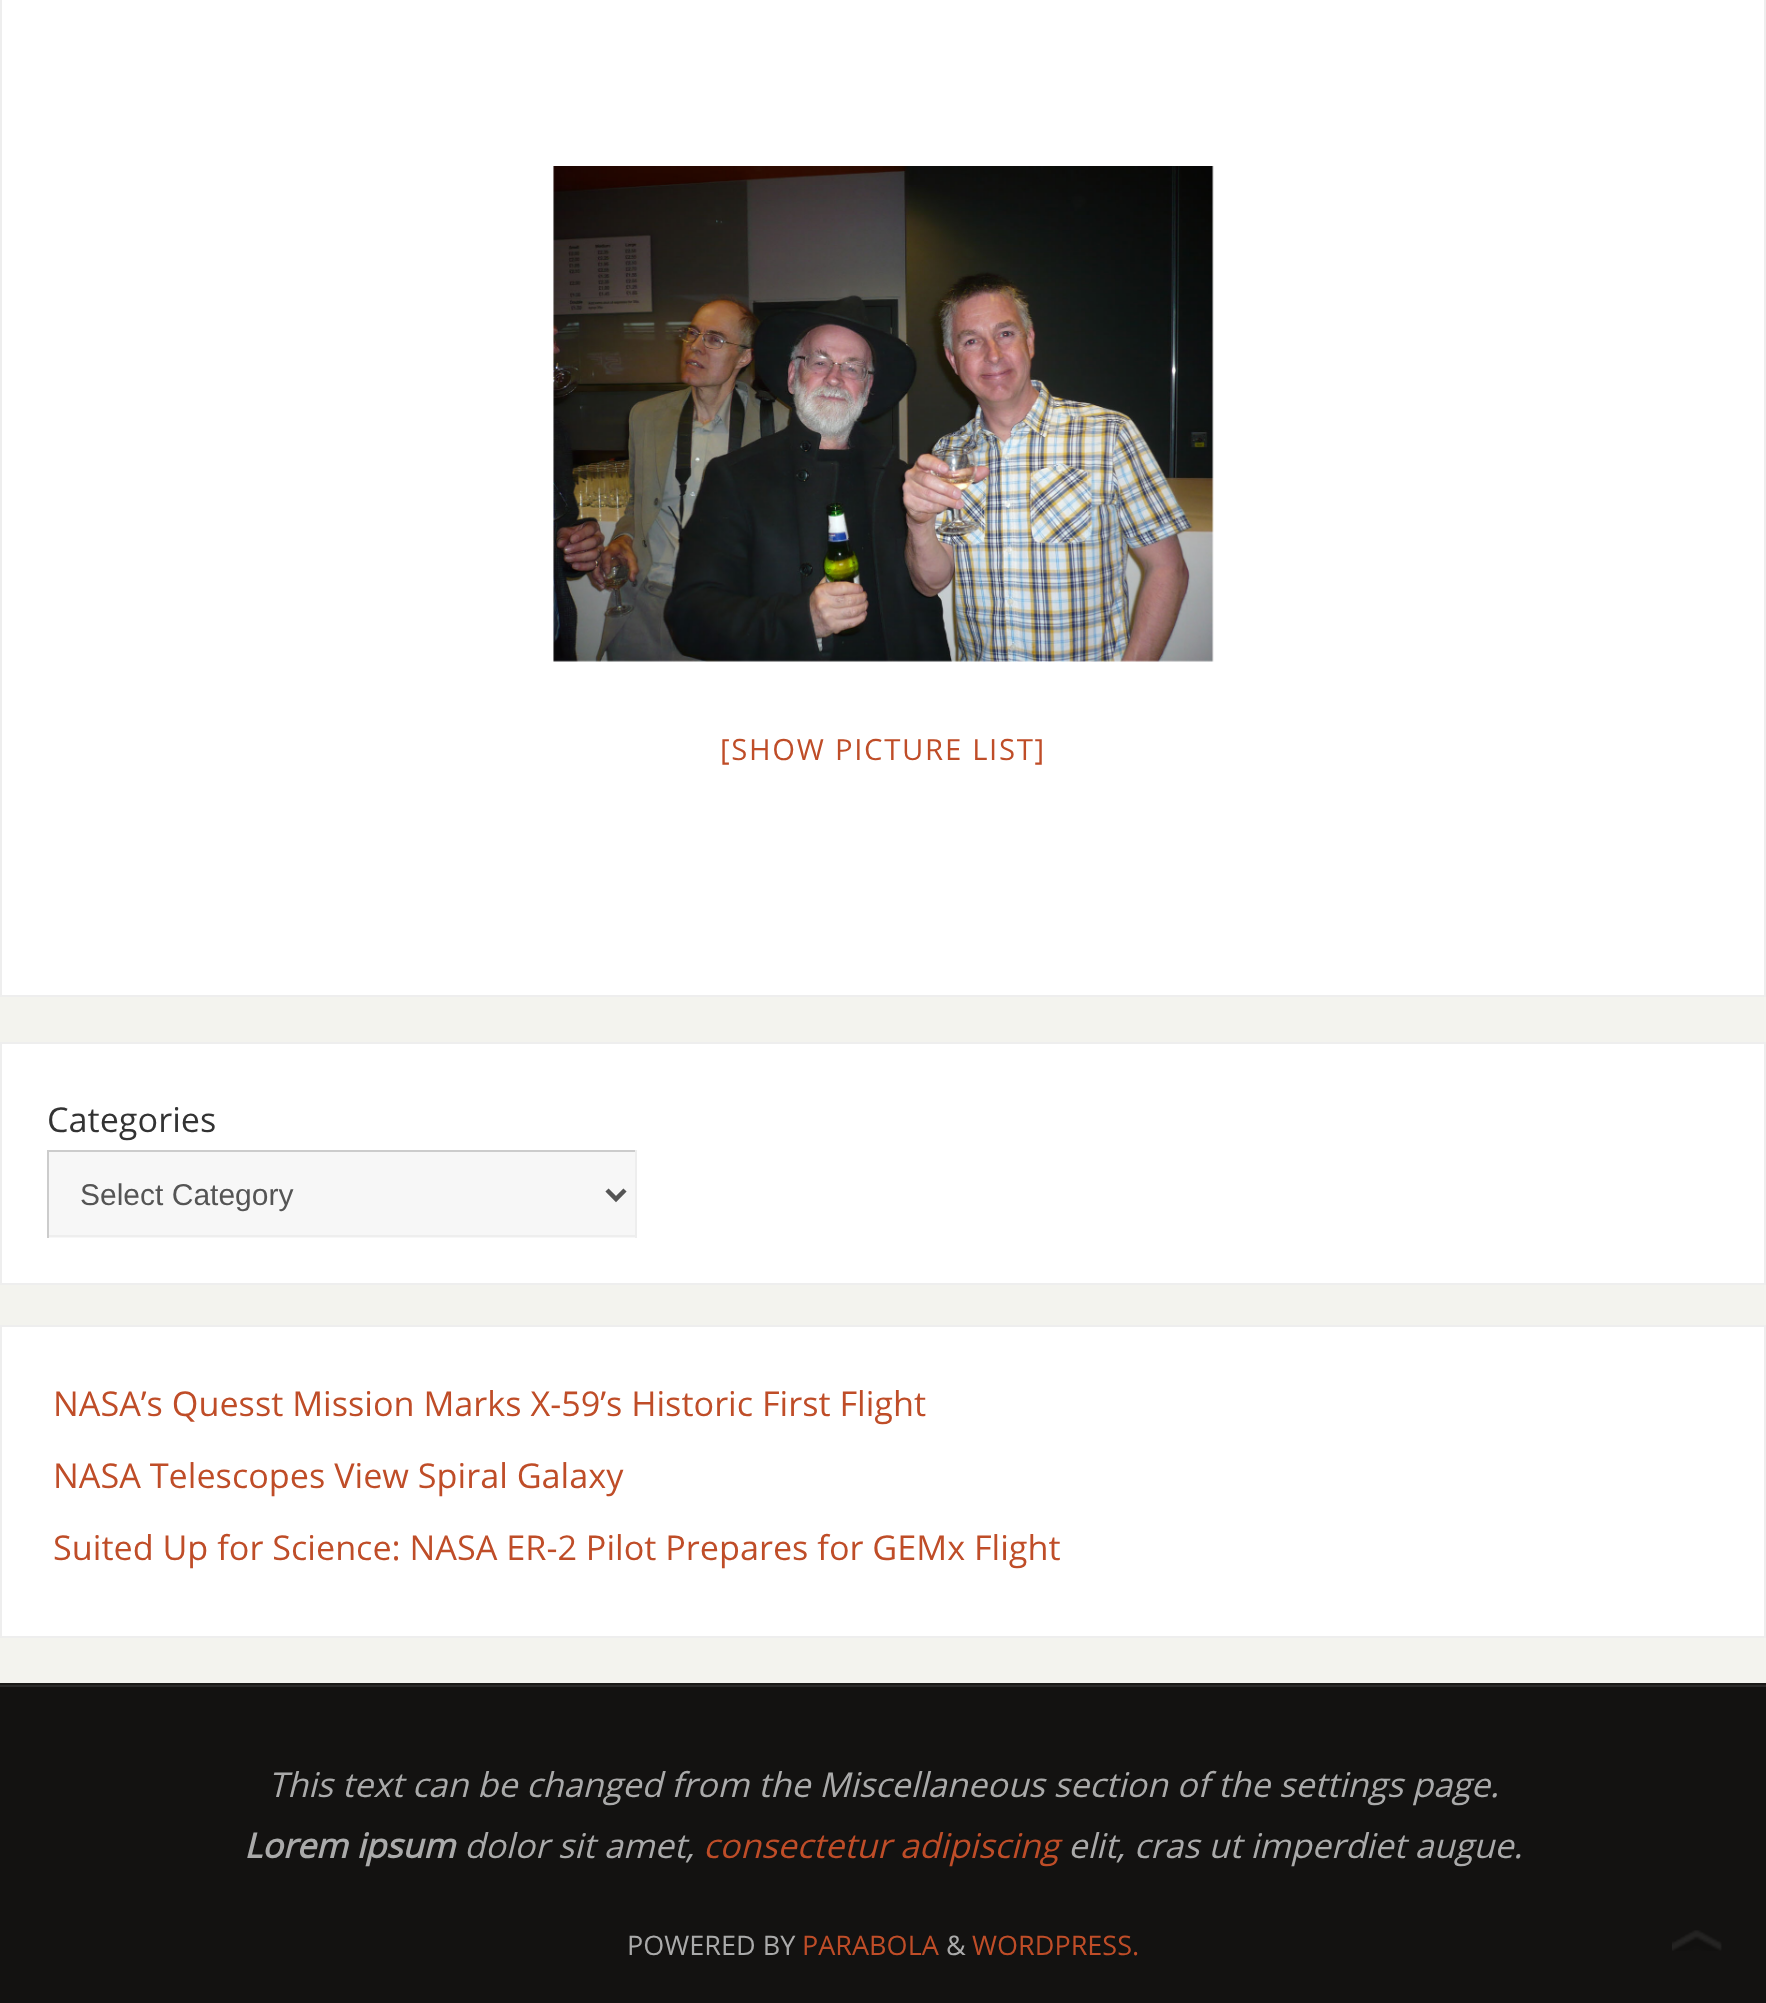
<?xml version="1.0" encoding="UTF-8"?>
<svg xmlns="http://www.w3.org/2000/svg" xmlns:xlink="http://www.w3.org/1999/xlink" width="1766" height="2003">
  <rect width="100%" height="100%" fill="#f3f3ee" />
  <rect x="1" y="-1" width="1764" height="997" fill="#ffffff" stroke="#eeeeee" stroke-width="2" />
  <image x="553" y="166" width="661" height="496" xlink:href="image1.png" />
  <rect x="1" y="1043" width="1764" height="241" fill="#ffffff" stroke="#eeeeee" stroke-width="2" />
  <rect x="49" y="1152" width="586" height="86" fill="#f7f7f7" />
  <rect x="47" y="1150" width="590" height="2" fill="#cccccc" />
  <rect x="635" y="1150" width="2" height="88" fill="#eeeeee" />
  <rect x="47" y="1235" width="590" height="2" fill="#eeeeee" />
  <rect x="47" y="1150" width="2" height="88" fill="#cccccc" />
  <path d="M 607 1190 l 9 9 l 9 -9" fill="none" stroke="#555555" stroke-width="4.5" />
  <rect x="1" y="1326" width="1764" height="311" fill="#ffffff" stroke="#eeeeee" stroke-width="2" />
  <rect y="1683" width="1766" height="2" fill="#1a1917" />
  <rect y="1687" width="1766" height="316" fill="#131211" />
  <rect y="1685" width="1766" height="2" fill="#2b2a29" />
  <image x="1672" y="1930" width="50" height="21" xlink:href="image2.png" />
  <text x="720" y="760" style="font-family: Open Sans; font-size: 29.25px; letter-spacing: 1.7px; fill: #bf4d28">[SHOW PICTURE LIST]</text>
  <text x="47" y="1132" style="font-family: Open Sans; font-size: 34.2px; fill: #333333">Categories</text>
  <text x="80" y="1205" style="font-family: Liberation Sans; font-size: 30px; fill: #555555">Select Category</text>
  <text x="53" y="1416" style="font-family: Open Sans; font-size: 34.2px; fill: #bf4d28">NASA’s Quesst Mission Marks X-59’s Historic First Flight</text>
  <text x="53" y="1488" style="font-family: Open Sans; font-size: 34.2px; fill: #bf4d28">NASA Telescopes View Spiral Galaxy</text>
  <text x="53" y="1560" style="font-family: Open Sans; font-size: 34.2px; fill: #bf4d28">Suited Up for Science: NASA ER-2 Pilot Prepares for GEMx Flight</text>
  <text x="268" y="1797" style="font-family: Open Sans; font-size: 34.2px; font-style: italic; fill: #aaaaaa">This text can be changed from the Miscellaneous section of the settings page.</text>
  <text x="244" y="1858" style="font-family: Open Sans; font-size: 34.2px; font-weight: bold; font-style: italic; fill: #aaaaaa">Lorem ipsum</text>
  <text x="464" y="1858" style="font-family: Open Sans; font-size: 34.2px; font-style: italic; fill: #aaaaaa">dolor sit amet,</text>
  <text x="703" y="1858" style="font-family: Open Sans; font-size: 34.2px; font-style: italic; fill: #bf4d28">consectetur adipiscing</text>
  <text x="1068" y="1858" style="font-family: Open Sans; font-size: 34.2px; font-style: italic; fill: #aaaaaa">elit, cras ut imperdiet augue.</text>
  <text x="627" y="1955" style="font-family: Open Sans; font-size: 27px; fill: #aaaaaa">POWERED BY</text>
  <text x="802" y="1955" style="font-family: Open Sans; font-size: 27px; fill: #bf4d28">PARABOLA</text>
  <text x="946" y="1955" style="font-family: Open Sans; font-size: 27px; fill: #aaaaaa">&amp;</text>
  <text x="972" y="1955" style="font-family: Open Sans; font-size: 27px; fill: #bf4d28">WORDPRESS.</text>
</svg>
